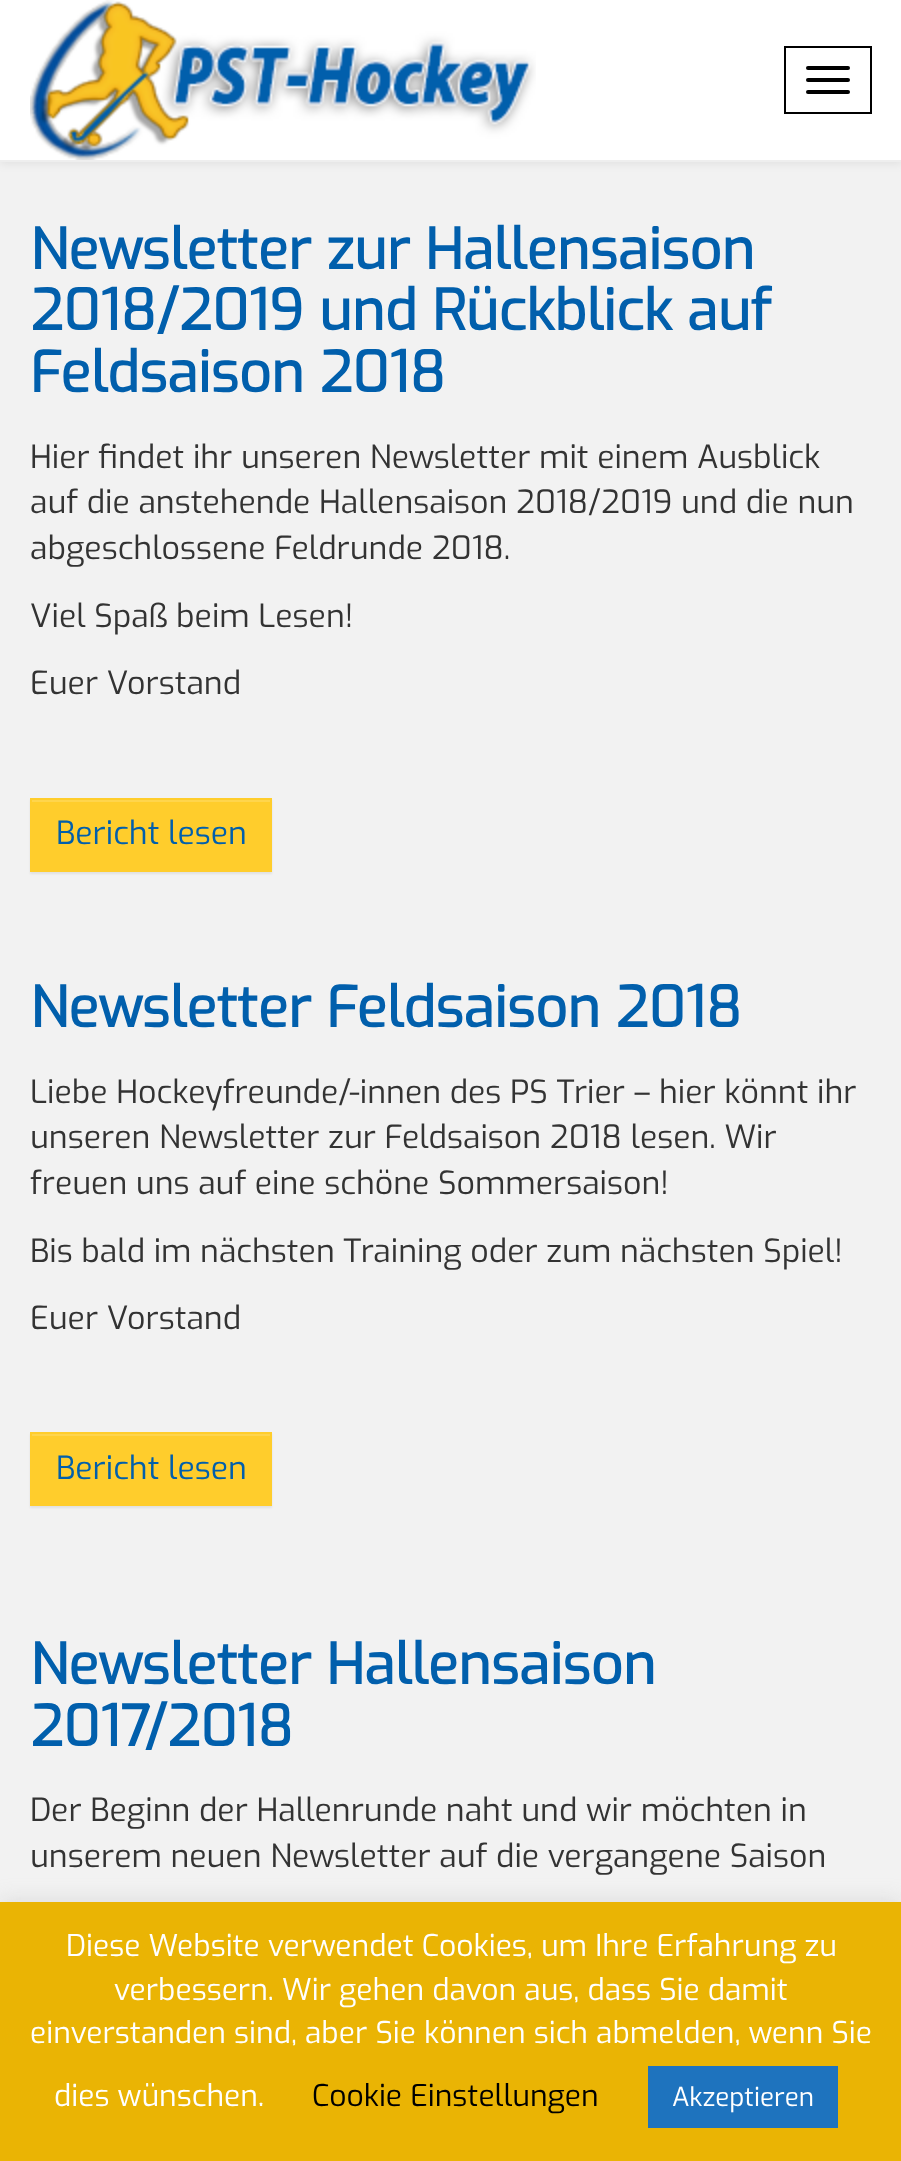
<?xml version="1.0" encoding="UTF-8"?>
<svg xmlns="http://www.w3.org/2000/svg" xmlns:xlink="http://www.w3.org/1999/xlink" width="901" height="2161">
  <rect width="100%" height="100%" fill="#f2f2f2" />
  <rect y="2" width="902" height="162" fill="#000000" fill-opacity="0.07" filter="blur(5px)" />
  <rect width="901" height="160" fill="#ffffff" />
  <rect y="160" width="901" height="2" fill="#eeeeee" />
  <image x="30" y="0" width="506" height="160" xlink:href="image1.png" />
  <rect x="785" y="47" width="86" height="66" fill="none" stroke="#000000" stroke-width="2" />
  <rect x="806" y="66" width="44" height="4" rx="2" fill="#000000" />
  <rect x="806" y="78" width="44" height="4" rx="2" fill="#000000" />
  <rect x="806" y="90" width="44" height="4" rx="2" fill="#000000" />
  <rect x="30" y="800" width="242" height="74" fill="#000000" fill-opacity="0.07" filter="blur(1px)" />
  <rect x="30" y="798" width="242" height="74" fill="#ffcd2c" />
  <rect x="32" y="800" width="238" height="2" fill="#ffd54c" />
  <rect x="30" y="1434" width="242" height="74" fill="#000000" fill-opacity="0.07" filter="blur(1px)" />
  <rect x="30" y="1432" width="242" height="74" fill="#ffcd2c" />
  <rect x="32" y="1434" width="238" height="2" fill="#ffd54c" />
  <rect y="1900" width="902" height="260" fill="#acabab" fill-opacity="0.3" filter="blur(10px)" />
  <rect y="1902" width="901" height="259" fill="#eab404" />
  <rect x="648" y="2066" width="190" height="62" fill="#1e73be" />
  <text x="30" y="269" style="font-family: Exo; font-size: 56px; font-weight: bold; fill: #015fac">Newsletter zur Hallensaison</text>
  <text x="30" y="330" style="font-family: Exo; font-size: 56px; font-weight: bold; fill: #015fac">2018/2019 und Rückblick auf</text>
  <text x="30" y="392" style="font-family: Exo; font-size: 56px; font-weight: bold; fill: #015fac">Feldsaison 2018</text>
  <text x="30" y="468" style="font-family: Exo; font-size: 32px; fill: #333333">Hier findet ihr unseren Newsletter mit einem Ausblick</text>
  <text x="30" y="513" style="font-family: Exo; font-size: 32px; fill: #333333">auf die anstehende Hallensaison 2018/2019 und die nun</text>
  <text x="30" y="559" style="font-family: Exo; font-size: 32px; fill: #333333">abgeschlossene Feldrunde 2018.</text>
  <text x="30" y="627" style="font-family: Exo; font-size: 32px; fill: #333333">Viel Spaß beim Lesen!</text>
  <text x="30" y="694" style="font-family: Exo; font-size: 32px; fill: #333333">Euer Vorstand</text>
  <text x="56" y="844" style="font-family: Exo; font-size: 32px; fill: #015fac">Bericht lesen</text>
  <text x="30" y="1027" style="font-family: Exo; font-size: 56px; font-weight: bold; fill: #015fac">Newsletter Feldsaison 2018</text>
  <text x="30" y="1103" style="font-family: Exo; font-size: 32px; fill: #333333">Liebe Hockeyfreunde/-innen des PS Trier – hier könnt ihr</text>
  <text x="30" y="1148" style="font-family: Exo; font-size: 32px; fill: #333333">unseren Newsletter zur Feldsaison 2018 lesen. Wir</text>
  <text x="30" y="1194" style="font-family: Exo; font-size: 32px; fill: #333333">freuen uns auf eine schöne Sommersaison!</text>
  <text x="30" y="1262" style="font-family: Exo; font-size: 32px; fill: #333333">Bis bald im nächsten Training oder zum nächsten Spiel!</text>
  <text x="30" y="1329" style="font-family: Exo; font-size: 32px; fill: #333333">Euer Vorstand</text>
  <text x="56" y="1479" style="font-family: Exo; font-size: 32px; fill: #015fac">Bericht lesen</text>
  <text x="30" y="1684" style="font-family: Exo; font-size: 56px; font-weight: bold; fill: #015fac">Newsletter Hallensaison</text>
  <text x="30" y="1746" style="font-family: Exo; font-size: 56px; font-weight: bold; fill: #015fac">2017/2018</text>
  <text x="30" y="1821" style="font-family: Exo; font-size: 32px; fill: #333333">Der Beginn der Hallenrunde naht und wir möchten in</text>
  <text x="30" y="1867" style="font-family: Exo; font-size: 32px; fill: #333333">unserem neuen Newsletter auf die vergangene Saison</text>
  <text x="66" y="1956" style="font-family: Exo; font-size: 30px; fill: #ffffff">Diese Website verwendet Cookies, um Ihre Erfahrung zu</text>
  <text x="114" y="2000" style="font-family: Exo; font-size: 30px; fill: #ffffff">verbessern. Wir gehen davon aus, dass Sie damit</text>
  <text x="30" y="2043" style="font-family: Exo; font-size: 30px; fill: #ffffff">einverstanden sind, aber Sie können sich abmelden, wenn Sie</text>
  <text x="54" y="2106" style="font-family: Exo; font-size: 30px; fill: #ffffff">dies wünschen.</text>
  <text x="312" y="2106" style="font-family: Exo; font-size: 30px; fill: #000000">Cookie Einstellungen</text>
  <text x="672" y="2106" style="font-family: Exo; font-size: 26px; fill: #ffffff">Akzeptieren</text>
</svg>
